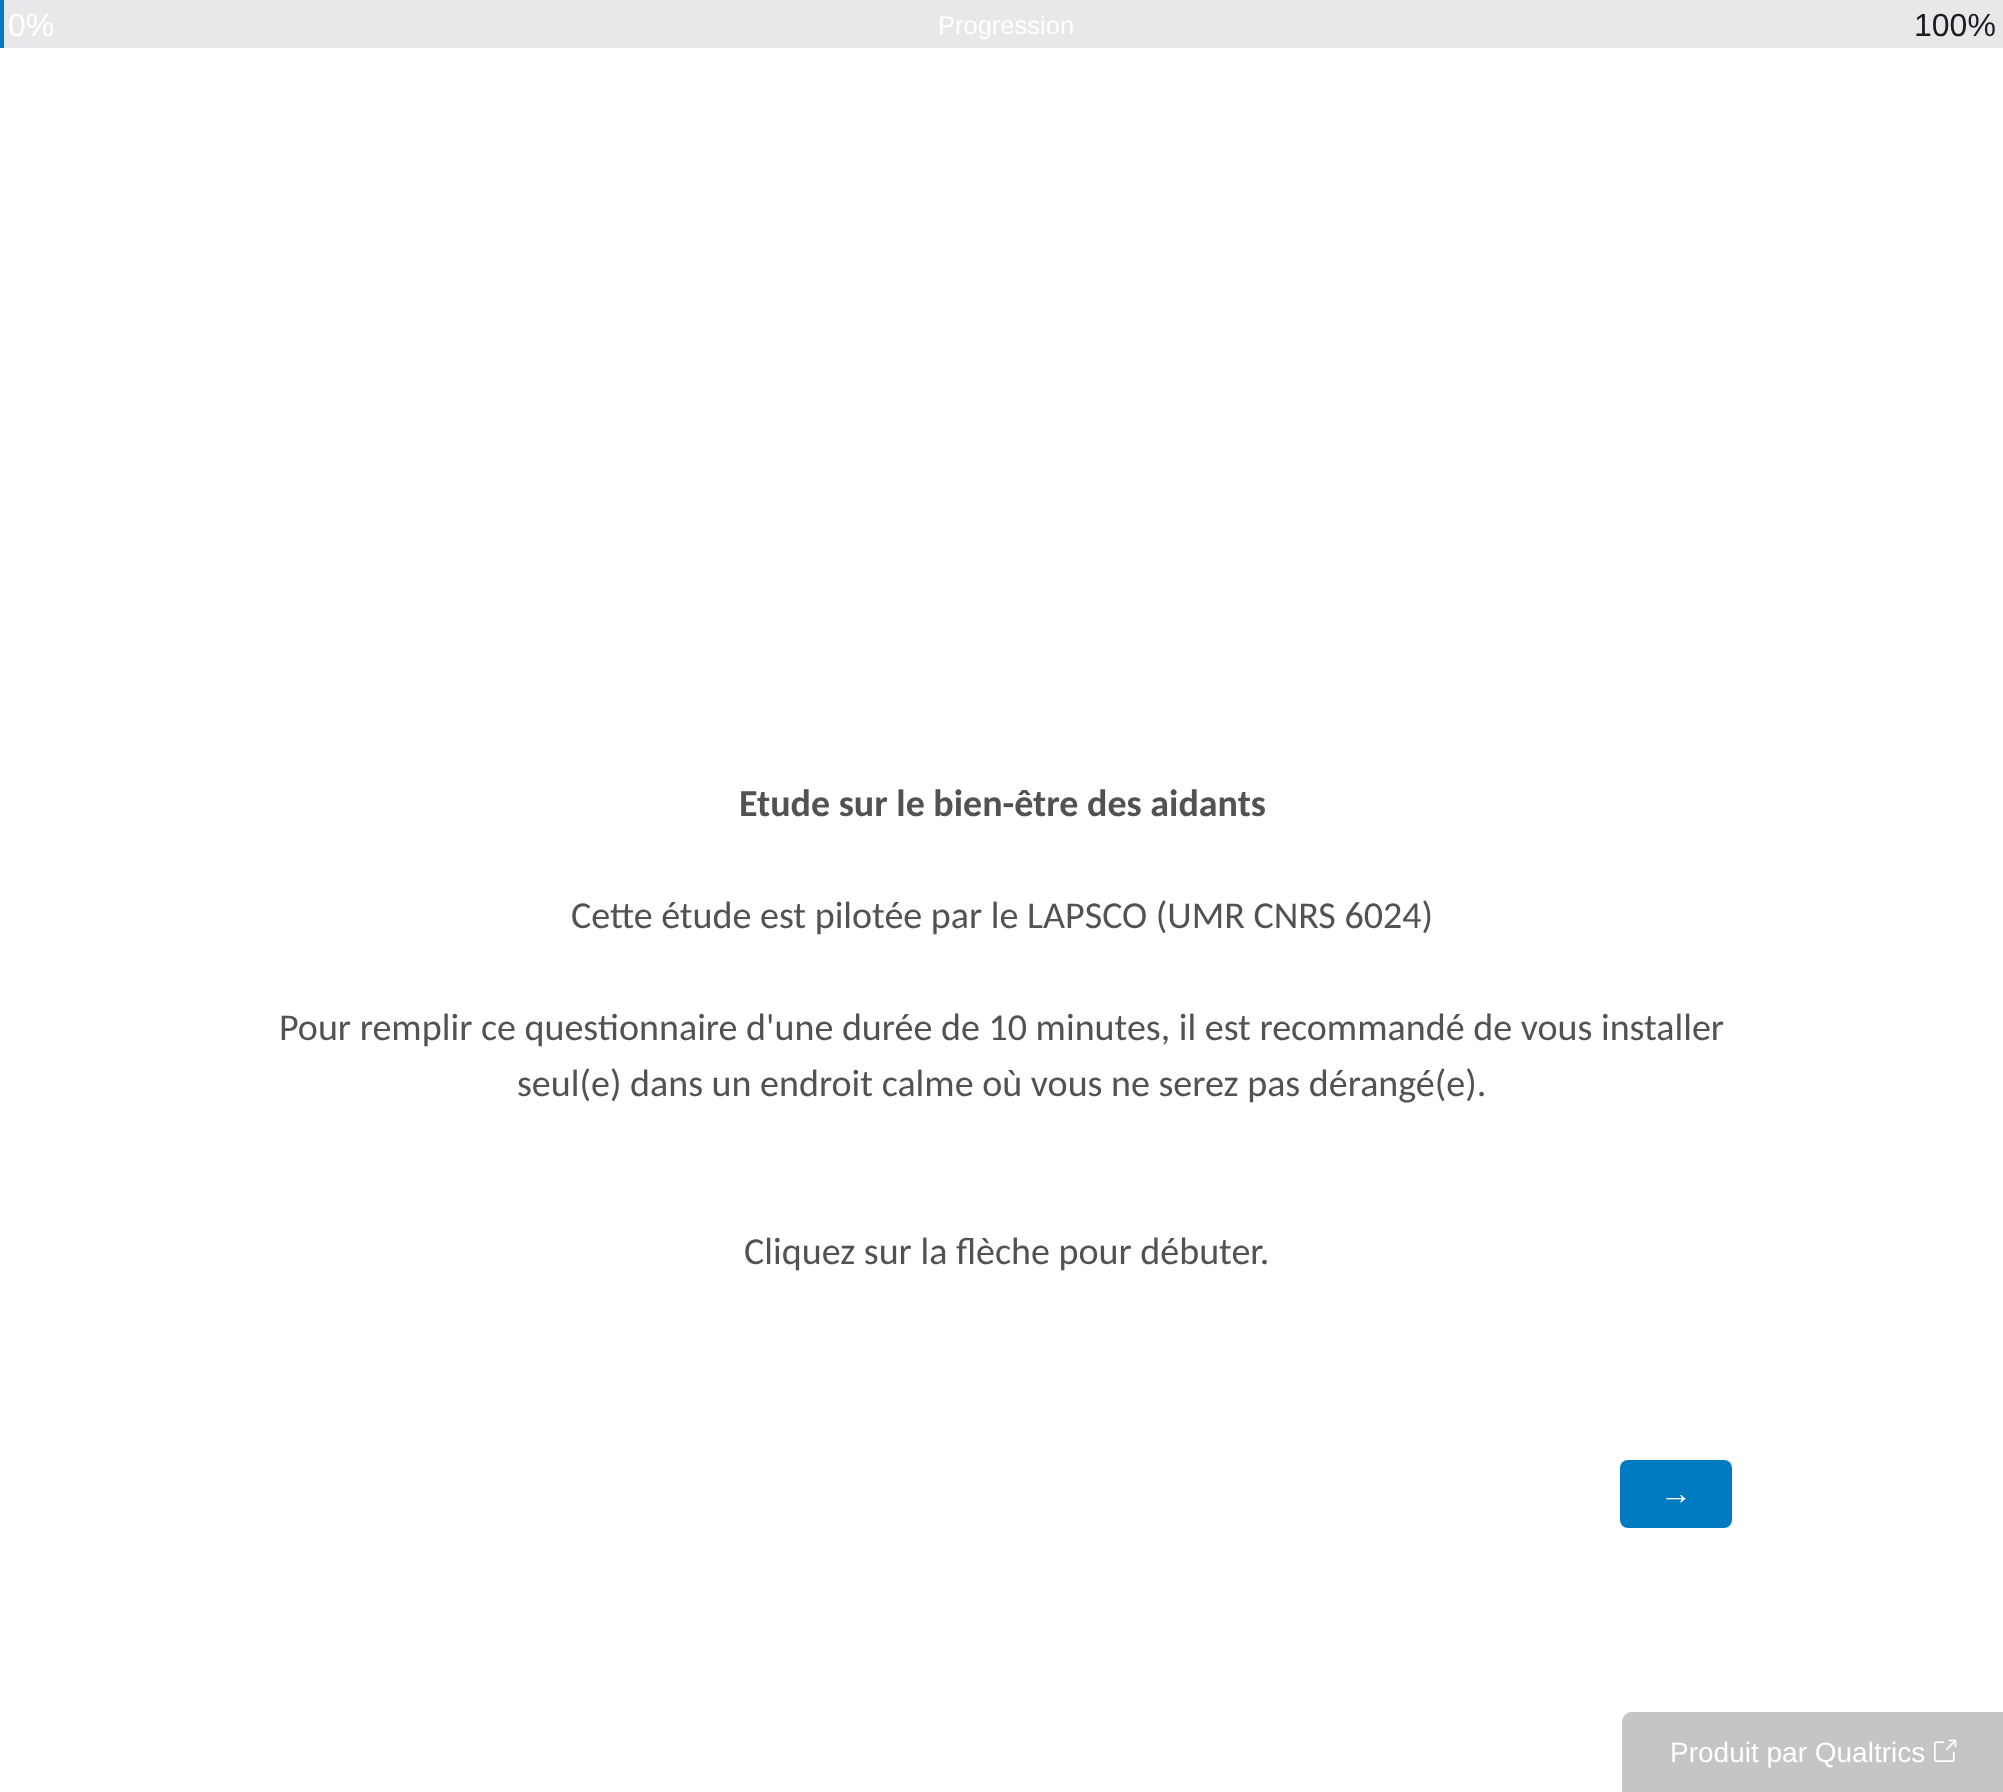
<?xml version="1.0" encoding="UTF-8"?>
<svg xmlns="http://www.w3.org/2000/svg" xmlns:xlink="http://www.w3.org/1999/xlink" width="2003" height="1792">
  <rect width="100%" height="100%" fill="#ffffff" />
  <rect width="4" height="48" fill="#007ac0" />
  <rect x="4" width="1999" height="48" fill="#e8e8eb" />
  <rect x="1620" y="1460" width="112" height="68" rx="8" fill="#007ac0" />
  <path d="M 1632 1712 h 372 v 80 h -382 v -70 c 0 -5.5 4.5 -10 10 -10 z" fill="#c5c5c7" />
  <image x="1934" y="1739" width="23" height="23" xlink:href="image1.png" />
  <text x="8" y="36" style="font-family: Liberation Sans; font-size: 32px; fill: #ffffff">0%</text>
  <text x="1914" y="36" style="font-family: Liberation Sans; font-size: 32px; fill: #1b1b20">100%</text>
  <text x="938" y="34" style="font-family: Liberation Sans; font-size: 25.5px; fill: #ffffff">Progression</text>
  <text x="739" y="816" style="font-family: Carlito; font-size: 38px; font-weight: bold; fill: #525252">Etude sur le bien-être des aidants</text>
  <text x="571" y="928" style="font-family: Carlito; font-size: 38px; fill: #525252">Cette étude est pilotée par le LAPSCO (UMR CNRS 6024)</text>
  <text x="279" y="1040" style="font-family: Carlito; font-size: 38px; fill: #525252">Pour remplir ce questionnaire d'une durée de 10 minutes, il est recommandé de vous installer</text>
  <text x="517" y="1096" style="font-family: Carlito; font-size: 38px; fill: #525252">seul(e) dans un endroit calme où vous ne serez pas dérangé(e).</text>
  <text x="744" y="1264" style="font-family: Carlito; font-size: 38px; fill: #525252">Cliquez sur la flèche pour débuter.</text>
  <text x="1660" y="1504" style="font-family: Liberation Sans; font-size: 32px; fill: #ffffff">→</text>
  <text x="1670" y="1762" style="font-family: Liberation Sans; font-size: 28px; fill: #ffffff">Produit par Qualtrics</text>
</svg>
